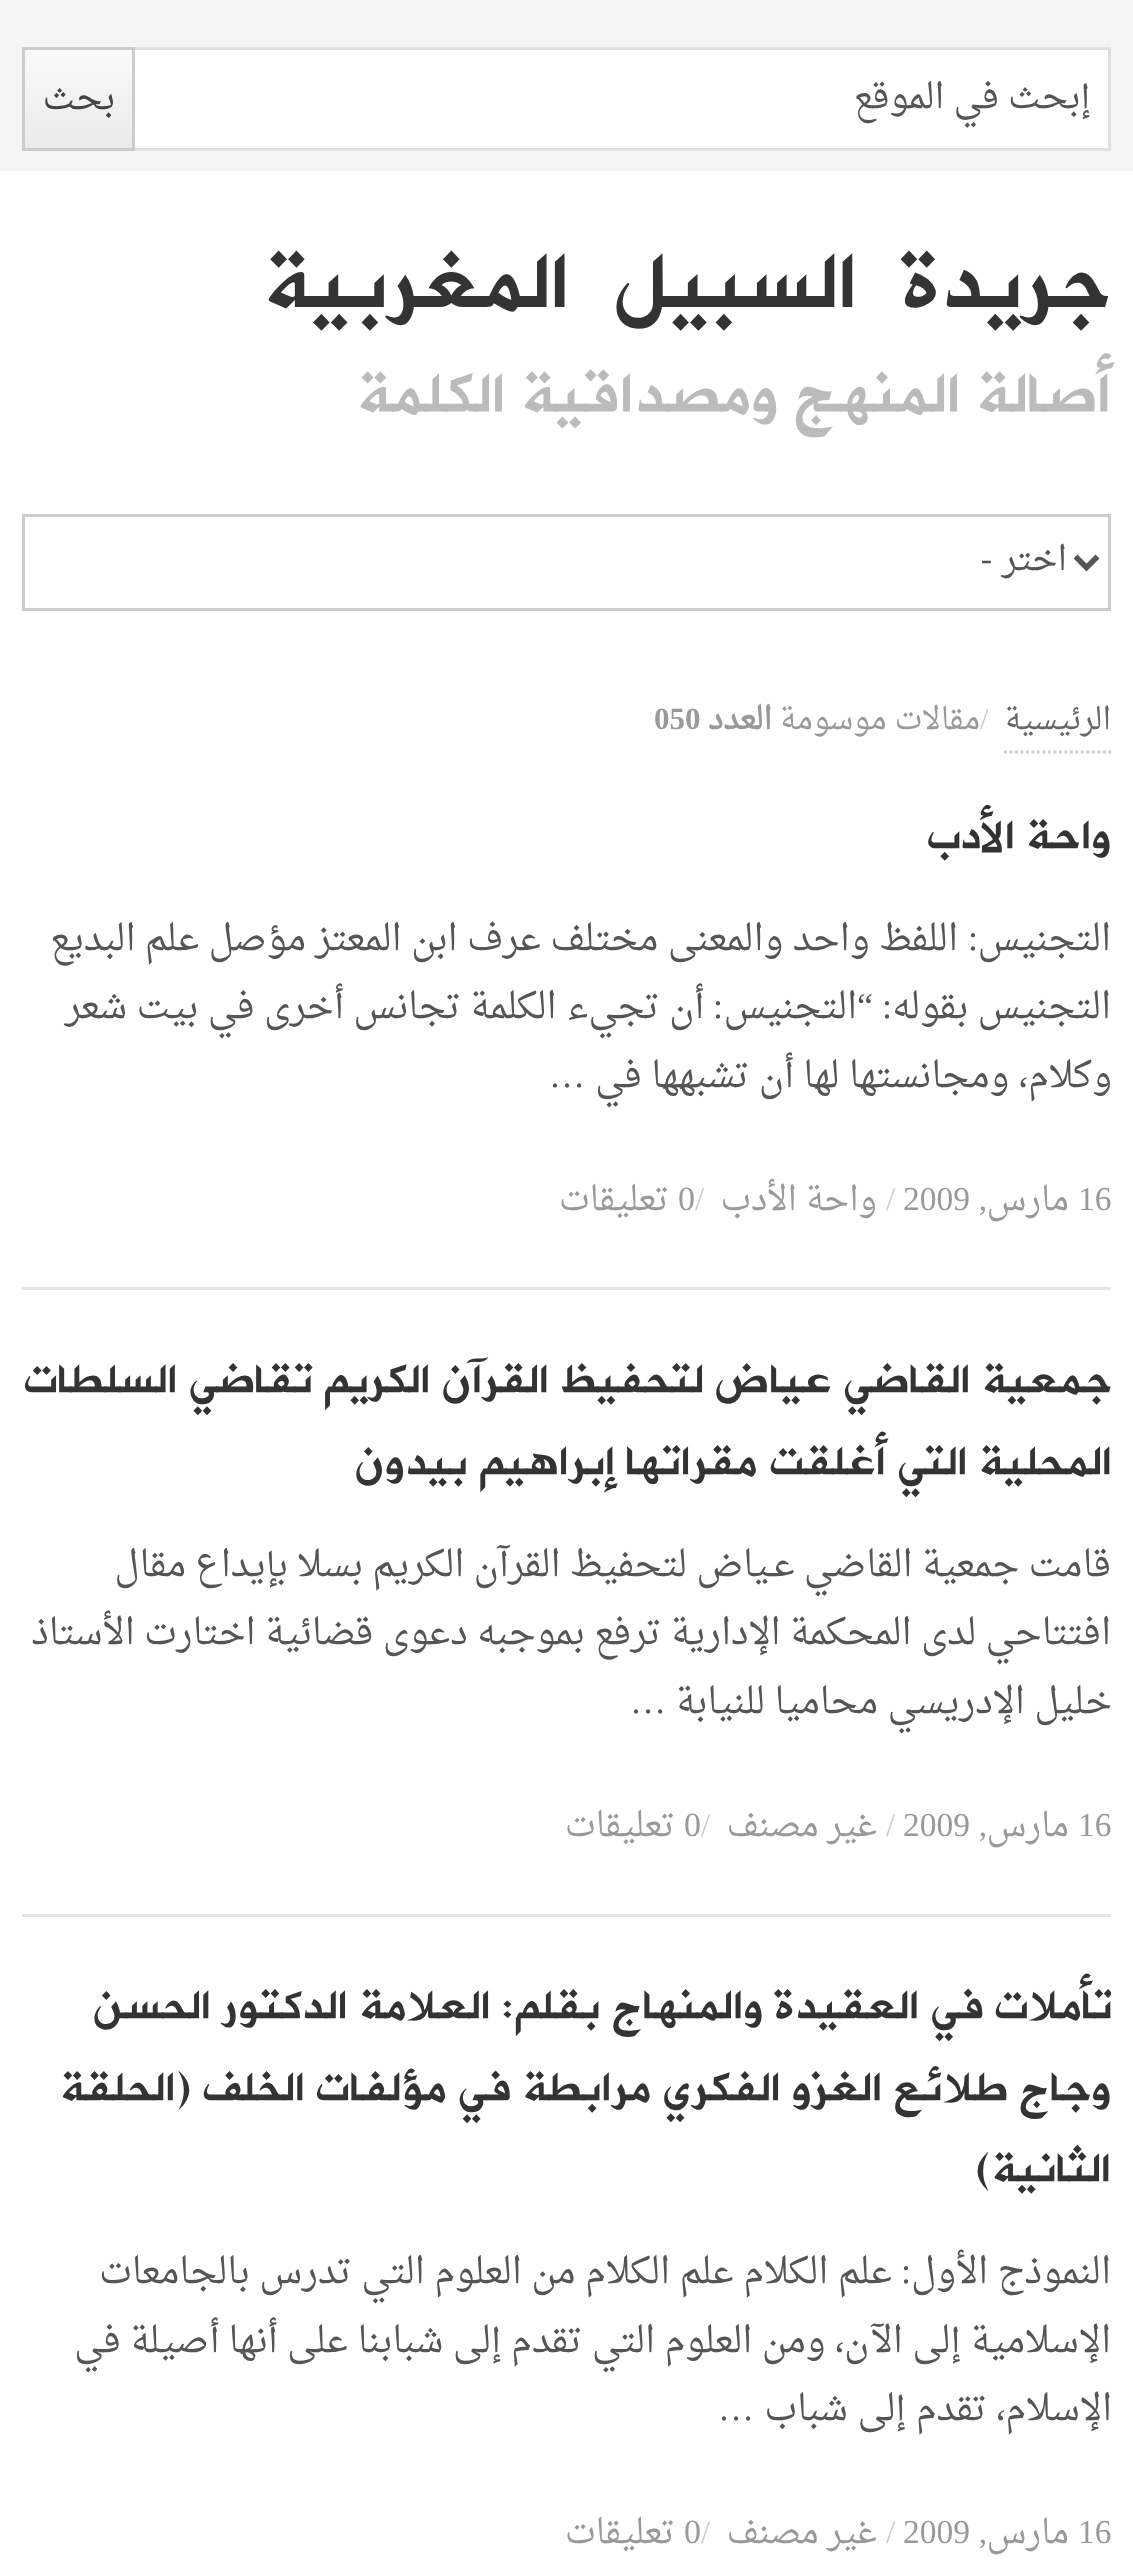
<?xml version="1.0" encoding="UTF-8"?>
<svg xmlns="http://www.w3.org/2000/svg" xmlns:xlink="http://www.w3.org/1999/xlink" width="1133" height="2576">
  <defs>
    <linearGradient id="g1" gradientUnits="userSpaceOnUse" x1="78" y1="49" x2="78" y2="149"><stop offset="0" stop-color="#fafafa" /><stop offset="1" stop-color="#eaeaea" /></linearGradient>
    <clipPath id="clip1"><rect x="22" y="1969" width="1089" height="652" /></clipPath>
  </defs>
  <rect width="100%" height="100%" fill="#ffffff" />
  <rect width="1133" height="171" fill="#f5f5f5" />
  <rect x="135" y="50" width="973" height="98" fill="#ffffff" />
  <rect x="23.5" y="48.5" width="1086" height="101" fill="none" stroke="#e0e0e0" stroke-width="3" />
  <rect x="25" y="50" width="107" height="98" fill="url(#g1)" />
  <rect x="23.5" y="48.5" width="110" height="101" fill="none" stroke="#cccccc" stroke-width="3" />
  <rect x="23.5" y="515.5" width="1086" height="94" fill="none" stroke="#cccccc" stroke-width="3" />
  <path d="M 1075.5 556.5 l 11 11 l 11 -11" fill="none" stroke="#555555" stroke-width="5.5" />
  <path d="M 1004 752 h 107" fill="none" stroke="#cccccc" stroke-width="2.8" stroke-dasharray="2.75 2.75" />
  <rect x="22" y="1287" width="1089" height="3" fill="#e5e5e5" />
  <rect x="22" y="1914" width="1089" height="3" fill="#e5e5e5" />
  <text x="1091" y="108" style="font-family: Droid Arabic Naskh; font-size: 35px; direction: rtl; fill: #555555">إبحث في الموقع</text>
  <text x="115" y="109" style="font-family: Droid Arabic Naskh; font-size: 35px; direction: rtl; fill: #444444">بحث</text>
  <text x="1111" y="316" word-spacing="22" style="font-family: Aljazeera; font-size: 104px; letter-spacing: -2.1px; direction: rtl; fill: #333333">جريدة السبيل المغربية</text>
  <text x="1111" y="418" style="font-family: Aljazeera; font-size: 74.25px; direction: rtl; fill: #bbbbbb">أصالة المنهج ومصداقية الكلمة</text>
  <text x="1067" y="570" style="font-family: Droid Arabic Naskh; font-size: 34px; direction: rtl; fill: #555555">اختر</text>
  <text x="992" y="570" style="font-family: Liberation Serif; font-size: 34px; direction: rtl; fill: #555555">-</text>
  <text x="1111" y="729" style="font-family: Droid Arabic Naskh; font-size: 30.5px; direction: rtl; fill: #666666">الرئيسية</text>
  <text x="980" y="729" style="font-family: Liberation Serif; font-size: 30.5px; fill: #cccccc">/</text>
  <text x="980" y="729" style="font-family: Droid Arabic Naskh; font-size: 30.5px; direction: rtl; fill: #999999">مقالات موسومة</text>
  <text x="772" y="729" style="font-family: Droid Arabic Naskh; font-size: 31px; font-weight: bold; direction: rtl; fill: #999999">العدد</text>
  <text x="654" y="729" style="font-family: Liberation Serif; font-size: 31px; font-weight: bold; fill: #999999">050</text>
  <text x="1111" y="853" style="font-family: Aljazeera; font-size: 54.1px; direction: rtl; fill: #333333">واحة</text>
  <text x="1015" y="853" style="font-family: Aljazeera; font-size: 54.1px; direction: rtl; fill: #333333">الأدب</text>
  <text x="1111" y="950" style="font-family: Droid Arabic Naskh; font-size: 36.1px; direction: rtl; fill: #555555">التجنيس</text>
  <text x="978" y="950" style="font-family: Liberation Serif; font-size: 36.1px; direction: rtl; fill: #555555">:</text>
  <text x="958" y="950" style="font-family: Droid Arabic Naskh; font-size: 36.1px; direction: rtl; fill: #555555">اللفظ واحد والمعنى مختلف عرف ابن المعتز مؤصل علم البديع</text>
  <text x="1111" y="1018" style="font-family: Droid Arabic Naskh; font-size: 36.1px; direction: rtl; fill: #555555">التجنيس بقوله</text>
  <text x="873" y="1018" style="font-family: Liberation Serif; font-size: 36.1px; direction: rtl; fill: #555555">“</text>
  <text x="857" y="1018" style="font-family: Droid Arabic Naskh; font-size: 36.1px; direction: rtl; fill: #555555">التجنيس</text>
  <text x="704" y="1018" style="font-family: Droid Arabic Naskh; font-size: 36.1px; direction: rtl; fill: #555555">أن تجيء الكلمة تجانس أخرى في بيت شعر</text>
  <text x="892" y="1018" style="font-family: Liberation Serif; font-size: 36.1px; direction: rtl; fill: #555555">:</text>
  <text x="723" y="1018" style="font-family: Liberation Serif; font-size: 36.1px; direction: rtl; fill: #555555">:</text>
  <text x="1112" y="1087" style="font-family: Droid Arabic Naskh; font-size: 36.1px; direction: rtl; fill: #555555">وكلام، ومجانستها لها أن تشبهها في</text>
  <text x="585" y="1087" style="font-family: Liberation Serif; font-size: 36.1px; direction: rtl; fill: #555555">…</text>
  <text x="1078" y="1210" style="font-family: Liberation Serif; font-size: 33.5px; fill: #999999">16</text>
  <text x="1069" y="1210" style="font-family: Droid Arabic Naskh; font-size: 33.5px; direction: rtl; fill: #999999">مارس</text>
  <text x="987" y="1210" style="font-family: Liberation Serif; font-size: 33.5px; direction: rtl; fill: #999999">,</text>
  <text x="903" y="1210" style="font-family: Liberation Serif; font-size: 33.5px; fill: #999999">2009</text>
  <text x="886" y="1210" style="font-family: Liberation Serif; font-size: 33px; fill: #cccccc">/</text>
  <text x="877" y="1210" style="font-family: Droid Arabic Naskh; font-size: 33.5px; direction: rtl; fill: #999999">واحة الأدب</text>
  <text x="695" y="1210" style="font-family: Liberation Serif; font-size: 33px; fill: #cccccc">/</text>
  <text x="678" y="1210" style="font-family: Liberation Serif; font-size: 34px; fill: #999999">0</text>
  <text x="669" y="1210" style="font-family: Droid Arabic Naskh; font-size: 34px; direction: rtl; fill: #999999">تعليقات</text>
  <text x="1112" y="1397" style="font-family: Aljazeera; font-size: 54.1px; direction: rtl; fill: #333333">جمعية القاضي عياض لتحفيظ القرآن الكريم تقاضي السلطات</text>
  <text x="1112" y="1479" style="font-family: Aljazeera; font-size: 54.1px; direction: rtl; fill: #333333">المحلية التي أغلقت مقراتها إبراهيم بيدون</text>
  <text x="1111" y="1576" word-spacing="-0.1" style="font-family: Droid Arabic Naskh; font-size: 36.1px; direction: rtl; fill: #555555">قامت جمعية القاضي عـياض لتحفيظ القرآن الكريم بسلا بإيداع مقال</text>
  <text x="1111" y="1644" word-spacing="-0.1" style="font-family: Droid Arabic Naskh; font-size: 36.1px; direction: rtl; fill: #555555">افتتاحي لدى المحكمة الإدارية ترفع بموجبه دعوى قضائية اختارت الأستاذ</text>
  <text x="1112" y="1713" style="font-family: Droid Arabic Naskh; font-size: 36.1px; direction: rtl; fill: #555555">خليل الإدريسي محاميا للنيابة</text>
  <text x="666" y="1713" style="font-family: Liberation Serif; font-size: 36.1px; direction: rtl; fill: #555555">…</text>
  <text x="1078" y="1836" style="font-family: Liberation Serif; font-size: 33.5px; fill: #999999">16</text>
  <text x="1069" y="1836" style="font-family: Droid Arabic Naskh; font-size: 33.5px; direction: rtl; fill: #999999">مارس</text>
  <text x="987" y="1836" style="font-family: Liberation Serif; font-size: 33.5px; direction: rtl; fill: #999999">,</text>
  <text x="903" y="1836" style="font-family: Liberation Serif; font-size: 33.5px; fill: #999999">2009</text>
  <text x="886" y="1836" style="font-family: Liberation Serif; font-size: 33px; fill: #cccccc">/</text>
  <text x="877" y="1836" style="font-family: Droid Arabic Naskh; font-size: 33.5px; direction: rtl; fill: #999999">غير مصنف</text>
  <text x="701" y="1836" style="font-family: Liberation Serif; font-size: 33px; fill: #cccccc">/</text>
  <text x="684" y="1836" style="font-family: Liberation Serif; font-size: 34px; fill: #999999">0</text>
  <text x="675" y="1836" style="font-family: Droid Arabic Naskh; font-size: 34px; direction: rtl; fill: #999999">تعليقات</text>
  <g clip-path="url(#clip1)">
    <text x="1112" y="2023" style="font-family: Aljazeera; font-size: 54.1px; direction: rtl; fill: #333333">تأملات في العقيدة والمنهاج بقلم: العلامة الدكتور الحسن</text>
  </g>
  <text x="1111" y="2105" style="font-family: Aljazeera; font-size: 54.1px; direction: rtl; fill: #333333">وجاج</text>
  <text x="1008" y="2105" style="font-family: Aljazeera; font-size: 54.1px; direction: rtl; fill: #333333">طلائع الغزو الفكري مرابطة في مؤلفات الخلف (الحلقة</text>
  <text x="1111" y="2186" style="font-family: Aljazeera; font-size: 54.1px; direction: rtl; fill: #333333">الثانية)</text>
  <text x="1111" y="2283" style="font-family: Droid Arabic Naskh; font-size: 36.1px; direction: rtl; fill: #555555">النموذج الأول</text>
  <text x="911" y="2283" style="font-family: Liberation Serif; font-size: 36.1px; direction: rtl; fill: #555555">:</text>
  <text x="892" y="2283" style="font-family: Droid Arabic Naskh; font-size: 36.1px; direction: rtl; fill: #555555">علم الكلام علم الكلام من العلوم التي تدرس بالجامعات</text>
  <text x="1111" y="2352" style="font-family: Droid Arabic Naskh; font-size: 36.1px; direction: rtl; fill: #555555">الإسلامية إلى الآن، ومن العلوم التي تقدم إلى شبابنا على أنها أصيلة في</text>
  <text x="1112" y="2420" style="font-family: Droid Arabic Naskh; font-size: 36.1px; direction: rtl; fill: #555555">الإسلام، تقدم إلى شباب</text>
  <text x="754" y="2420" style="font-family: Liberation Serif; font-size: 36.1px; direction: rtl; fill: #555555">…</text>
  <text x="1078" y="2543" style="font-family: Liberation Serif; font-size: 33.5px; fill: #999999">16</text>
  <text x="1069" y="2543" style="font-family: Droid Arabic Naskh; font-size: 33.5px; direction: rtl; fill: #999999">مارس</text>
  <text x="987" y="2543" style="font-family: Liberation Serif; font-size: 33.5px; direction: rtl; fill: #999999">,</text>
  <text x="903" y="2543" style="font-family: Liberation Serif; font-size: 33.5px; fill: #999999">2009</text>
  <text x="886" y="2543" style="font-family: Liberation Serif; font-size: 33px; fill: #cccccc">/</text>
  <text x="877" y="2543" style="font-family: Droid Arabic Naskh; font-size: 33.5px; direction: rtl; fill: #999999">غير مصنف</text>
  <text x="701" y="2543" style="font-family: Liberation Serif; font-size: 33px; fill: #cccccc">/</text>
  <text x="684" y="2543" style="font-family: Liberation Serif; font-size: 34px; fill: #999999">0</text>
  <text x="675" y="2543" style="font-family: Droid Arabic Naskh; font-size: 34px; direction: rtl; fill: #999999">تعليقات</text>
</svg>
